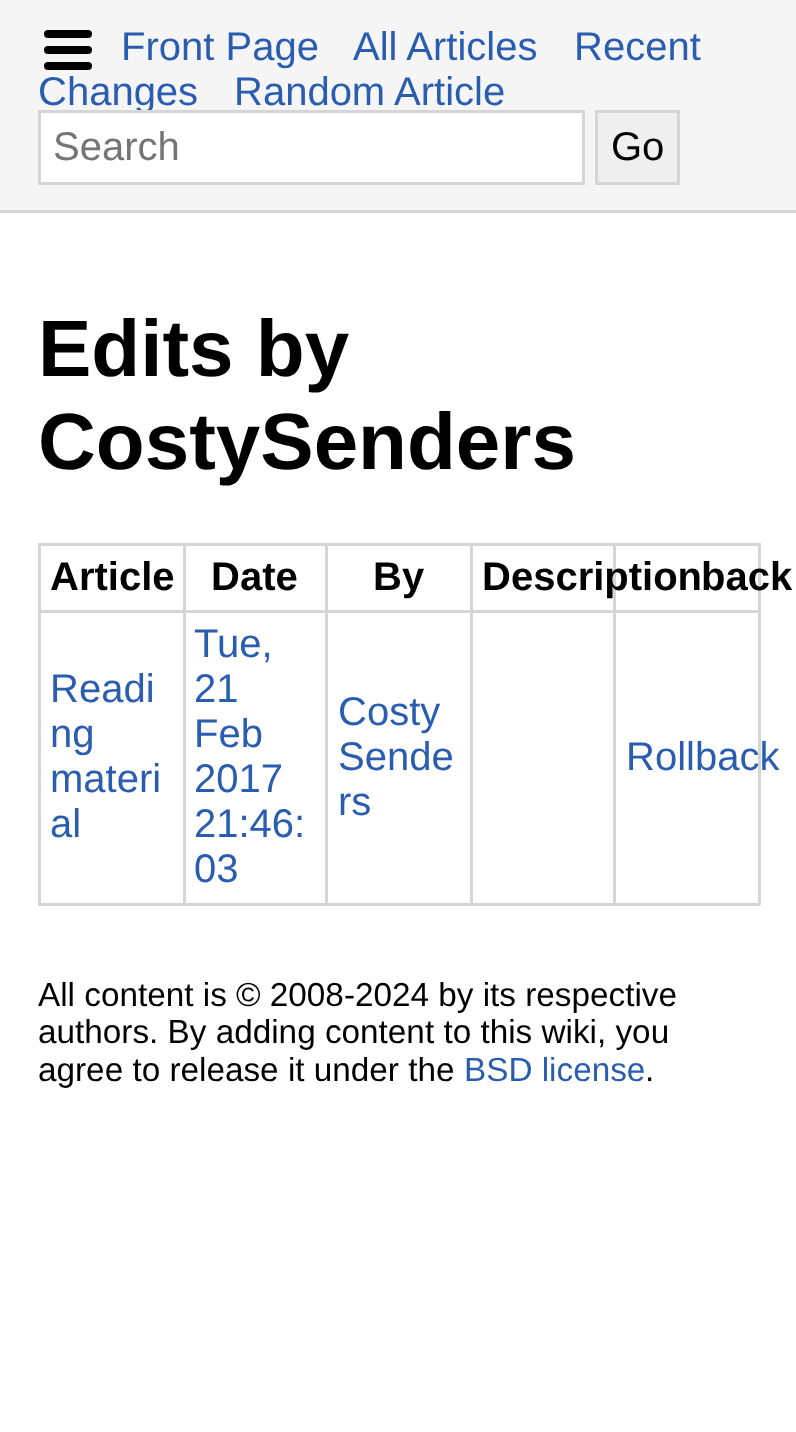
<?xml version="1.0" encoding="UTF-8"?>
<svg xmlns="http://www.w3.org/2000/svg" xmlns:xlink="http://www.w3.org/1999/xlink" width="796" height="1432">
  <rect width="100%" height="100%" fill="#ffffff" />
  <rect width="796" height="210" fill="#f5f5f5" />
  <rect y="210" width="796" height="3" fill="#d5d5d5" />
  <rect x="44" y="30" width="48" height="8" rx="4" fill="#000000" />
  <rect x="44" y="46" width="48" height="8" rx="4" fill="#000000" />
  <rect x="44" y="62" width="48" height="8" rx="4" fill="#000000" />
  <rect x="596.5" y="111.5" width="82" height="72" fill="#efefef" stroke="#d5d5d5" stroke-width="3" />
  <rect x="38" y="543" width="722" height="3" fill="#d5d5d5" />
  <rect x="758" y="543" width="3" height="362" fill="#d5d5d5" />
  <rect x="38" y="903" width="722" height="3" fill="#d5d5d5" />
  <rect x="38" y="543" width="3" height="362" fill="#d5d5d5" />
  <rect x="613" y="610" width="147" height="3" fill="#d5d5d5" />
  <rect x="613" y="610" width="3" height="295" fill="#d5d5d5" />
  <rect x="470" y="610" width="145" height="3" fill="#d5d5d5" />
  <rect x="470" y="610" width="3" height="295" fill="#d5d5d5" />
  <rect x="325" y="610" width="148" height="3" fill="#d5d5d5" />
  <rect x="325" y="610" width="3" height="295" fill="#d5d5d5" />
  <rect x="183" y="610" width="145" height="3" fill="#d5d5d5" />
  <rect x="183" y="610" width="3" height="295" fill="#d5d5d5" />
  <rect x="38" y="610" width="147" height="3" fill="#d5d5d5" />
  <rect x="183" y="543" width="3" height="70" fill="#d5d5d5" />
  <rect x="325" y="543" width="3" height="70" fill="#d5d5d5" />
  <rect x="470" y="543" width="3" height="70" fill="#d5d5d5" />
  <rect x="613" y="543" width="3" height="70" fill="#d5d5d5" />
  <text x="121" y="60" style="font-family: Liberation Sans; font-size: 40px; fill: #2a5db0">Front Page</text>
  <text x="353" y="60" style="font-family: Liberation Sans; font-size: 40px; fill: #2a5db0">All Articles</text>
  <text x="574" y="60" style="font-family: Liberation Sans; font-size: 40px; fill: #2a5db0">Recent</text>
  <text x="38" y="105" style="font-family: Liberation Sans; font-size: 40px; fill: #2a5db0">Changes</text>
  <text x="234" y="105" style="font-family: Liberation Sans; font-size: 40px; fill: #2a5db0">Random Article</text>
  <rect x="39.5" y="111.5" width="544" height="72" fill="#ffffff" stroke="#d5d5d5" stroke-width="3" />
  <text x="53" y="160" style="font-family: Liberation Sans; font-size: 40px; fill: #757575">Search</text>
  <text x="611" y="160" style="font-family: Liberation Sans; font-size: 40px; fill: #000000">Go</text>
  <text x="38" y="376" style="font-family: Liberation Sans; font-size: 80px; font-weight: bold; fill: #000000">Edits by</text>
  <text x="38" y="469" style="font-family: Liberation Sans; font-size: 80px; font-weight: bold; fill: #000000">CostySenders</text>
  <text x="50" y="590" style="font-family: Liberation Sans; font-size: 40px; font-weight: bold; fill: #000000">Article</text>
  <text x="211" y="590" style="font-family: Liberation Sans; font-size: 40px; font-weight: bold; fill: #000000">Date</text>
  <text x="373" y="590" style="font-family: Liberation Sans; font-size: 40px; font-weight: bold; fill: #000000">By</text>
  <text x="482" y="590" style="font-family: Liberation Sans; font-size: 40px; font-weight: bold; fill: #000000">Description</text>
  <text x="701" y="590" style="font-family: Liberation Sans; font-size: 40px; font-weight: bold; fill: #000000">back</text>
  <text x="50" y="702" style="font-family: Liberation Sans; font-size: 40px; fill: #2a5db0">Readi</text>
  <text x="50" y="747" style="font-family: Liberation Sans; font-size: 40px; fill: #2a5db0">ng</text>
  <text x="50" y="792" style="font-family: Liberation Sans; font-size: 40px; fill: #2a5db0">materi</text>
  <text x="50" y="837" style="font-family: Liberation Sans; font-size: 40px; fill: #2a5db0">al</text>
  <text x="194" y="657" style="font-family: Liberation Sans; font-size: 40px; fill: #2a5db0">Tue,</text>
  <text x="194" y="702" style="font-family: Liberation Sans; font-size: 40px; fill: #2a5db0">21</text>
  <text x="194" y="747" style="font-family: Liberation Sans; font-size: 40px; fill: #2a5db0">Feb</text>
  <text x="194" y="792" style="font-family: Liberation Sans; font-size: 40px; fill: #2a5db0">2017</text>
  <text x="194" y="837" style="font-family: Liberation Sans; font-size: 40px; fill: #2a5db0">21:46:</text>
  <text x="194" y="882" style="font-family: Liberation Sans; font-size: 40px; fill: #2a5db0">03</text>
  <text x="338" y="725" style="font-family: Liberation Sans; font-size: 40px; fill: #2a5db0">Costy</text>
  <text x="338" y="770" style="font-family: Liberation Sans; font-size: 40px; fill: #2a5db0">Sende</text>
  <text x="338" y="815" style="font-family: Liberation Sans; font-size: 40px; fill: #2a5db0">rs</text>
  <text x="626" y="770" style="font-family: Liberation Sans; font-size: 40px; fill: #2a5db0">Rollback</text>
  <text x="38" y="1006" style="font-family: Liberation Sans; font-size: 33.3px; fill: #000000">All content is © 2008-2024 by its respective</text>
  <text x="38" y="1043" style="font-family: Liberation Sans; font-size: 33.3px; fill: #000000">authors. By adding content to this wiki, you</text>
  <text x="38" y="1081" style="font-family: Liberation Sans; font-size: 33.3px; fill: #000000">agree to release it under the</text>
  <text x="464" y="1081" style="font-family: Liberation Sans; font-size: 33.3px; fill: #2a5db0">BSD license</text>
  <text x="645" y="1081" style="font-family: Liberation Sans; font-size: 33.3px; fill: #000000">.</text>
</svg>
